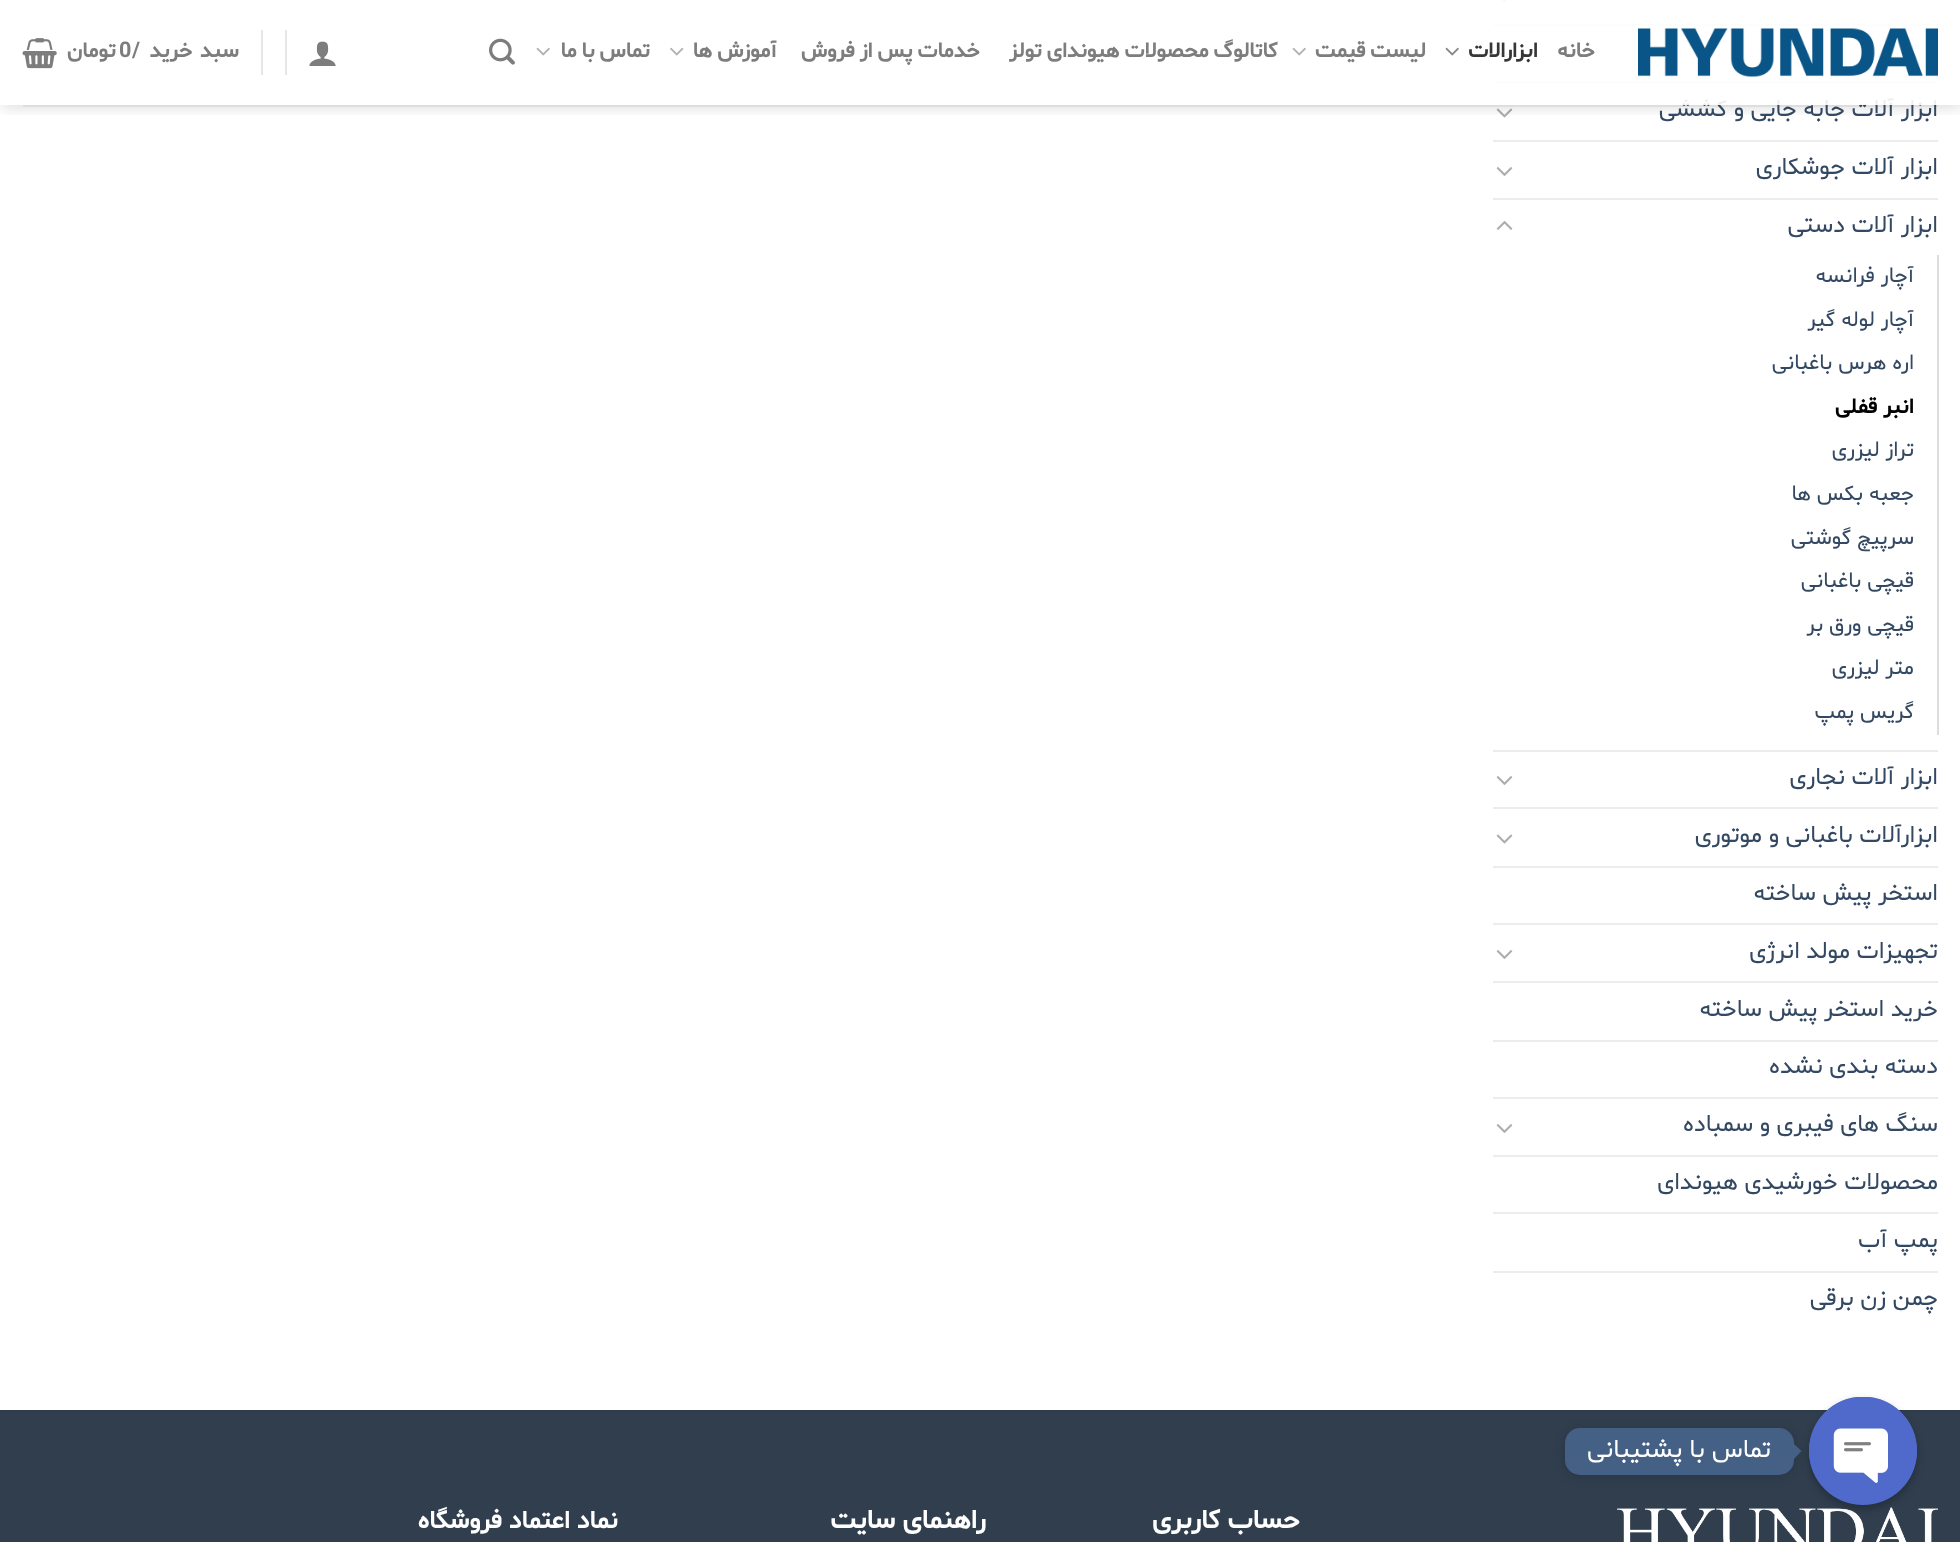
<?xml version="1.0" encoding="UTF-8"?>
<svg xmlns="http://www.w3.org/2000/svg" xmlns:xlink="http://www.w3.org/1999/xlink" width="1960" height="1542">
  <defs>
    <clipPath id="clip1"><rect x="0" y="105" width="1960" height="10" /></clipPath>
  </defs>
  <rect width="100%" height="100%" fill="#ffffff" />
  <image x="1502" y="0" width="5" height="2" xlink:href="image8.png" />
  <rect x="1493" y="24" width="445" height="2" fill="#ececec" />
  <image x="1496" y="50" width="17" height="9" xlink:href="image9.png" />
  <rect x="1493" y="81" width="445" height="2" fill="#ececec" />
  <image x="1496" y="108" width="17" height="10" xlink:href="image10.png" />
  <g clip-path="url(#clip1)">
    <rect x="2" y="2" width="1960" height="105" fill="#000000" fill-opacity="0.15" filter="blur(7.5px)" />
  </g>
  <image x="1445" y="47" width="14" height="9" xlink:href="image2.png" />
  <image x="1292" y="47" width="14" height="9" xlink:href="image3.png" />
  <image x="670" y="47" width="14" height="9" xlink:href="image4.png" />
  <image x="536" y="47" width="14" height="9" xlink:href="image3.png" />
  <image x="489" y="38" width="26" height="27" xlink:href="image5.png" />
  <image x="309" y="41" width="27" height="25" xlink:href="image6.png" />
  <rect x="285" y="30" width="2" height="45" fill="#e6e6e6" />
  <rect x="261" y="30" width="2" height="45" fill="#e6e6e6" />
  <image x="22" y="38" width="35" height="31" xlink:href="image7.png" />
  <rect x="23" y="105" width="1915" height="2" fill="#777777" fill-opacity="0.1" />
  <rect x="1493" y="140" width="445" height="2" fill="#ececec" />
  <image x="1496" y="167" width="17" height="9" xlink:href="image9.png" />
  <rect x="1493" y="198" width="445" height="2" fill="#ececec" />
  <image x="1496" y="221" width="17" height="9" xlink:href="image11.png" />
  <rect x="1937" y="255" width="2" height="480" fill="#dddddd" />
  <rect x="1493" y="750" width="445" height="2" fill="#ececec" />
  <image x="1496" y="776" width="17" height="9" xlink:href="image9.png" />
  <rect x="1493" y="807" width="445" height="2" fill="#ececec" />
  <image x="1496" y="834" width="17" height="10" xlink:href="image10.png" />
  <rect x="1493" y="866" width="445" height="2" fill="#ececec" />
  <rect x="1493" y="923" width="445" height="2" fill="#ececec" />
  <image x="1496" y="950" width="17" height="9" xlink:href="image9.png" />
  <rect x="1493" y="981" width="445" height="2" fill="#ececec" />
  <rect x="1493" y="1040" width="445" height="2" fill="#ececec" />
  <rect x="1493" y="1097" width="445" height="2" fill="#ececec" />
  <image x="1496" y="1124" width="17" height="9" xlink:href="image9.png" />
  <rect x="1493" y="1155" width="445" height="2" fill="#ececec" />
  <rect x="1493" y="1212" width="445" height="2" fill="#ececec" />
  <rect x="1493" y="1271" width="445" height="2" fill="#ececec" />
  <rect y="1412" width="1960" height="130" fill="#303e4e" />
  <rect y="1410" width="1960" height="2" fill="#2e3b4a" />
  <image x="1617" y="1507" width="321" height="35" xlink:href="image12.png" />
  <rect x="1565" y="1430" width="229" height="46" rx="15" fill="#000000" fill-opacity="0.15" filter="blur(6px)" />
  <path d="M 1794 1459 v -15 l 7.5 7 z" fill="#446084" />
  <rect x="1809" y="1401" width="108" height="108" rx="54" fill="#000000" fill-opacity="0.25" filter="blur(4.5px)" />
  <circle cx="1863" cy="1451" r="54" fill="#4f6aca" />
  <image x="1809" y="1397" width="108" height="90" xlink:href="image13.png" />
  <rect x="1565" y="1428" width="229" height="47" rx="15" fill="#446084" />
  <text x="1426" y="57" word-spacing="-1" style="font-family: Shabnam; font-size: 21.6px; font-weight: bold; letter-spacing: 0.4px; direction: rtl; fill: #7d7d7d">لیست قیمت</text>
  <text x="1278" y="57" word-spacing="-1" style="font-family: Shabnam; font-size: 21.6px; font-weight: bold; letter-spacing: 0.4px; direction: rtl; fill: #7d7d7d">کاتالوگ محصولات هیوندای تولز</text>
  <text x="980" y="57" word-spacing="-1" style="font-family: Shabnam; font-size: 21.6px; font-weight: bold; letter-spacing: 0.4px; direction: rtl; fill: #7d7d7d">خدمات پس از فروش</text>
  <text x="777" y="57" word-spacing="-1" style="font-family: Shabnam; font-size: 21.6px; font-weight: bold; letter-spacing: 0.4px; direction: rtl; fill: #7d7d7d">آموزش ها</text>
  <text x="650" y="57" word-spacing="-1" style="font-family: Shabnam; font-size: 21.6px; font-weight: bold; letter-spacing: 0.4px; direction: rtl; fill: #7d7d7d">تماس با ما</text>
  <text x="239" y="57" word-spacing="2" style="font-family: Shabnam; font-size: 21.6px; font-weight: bold; letter-spacing: 0.4px; direction: rtl; fill: #7d7d7d">سبد خرید</text>
  <text x="132" y="57" style="font-family: Shabnam; font-size: 21.6px; font-weight: bold; letter-spacing: 0.4px; fill: #7d7d7d">/</text>
  <text x="119" y="57" style="font-family: Shabnam; font-size: 21.6px; font-weight: bold; letter-spacing: 0.4px; fill: #7d7d7d">0</text>
  <text x="116" y="57" style="font-family: Shabnam; font-size: 21.6px; font-weight: bold; letter-spacing: 0.4px; direction: rtl; fill: #7d7d7d">تومان</text>
  <text x="1938" y="116" style="font-family: Shabnam; font-size: 24px; direction: rtl; fill: #334862">ابزار آلات جابه جایی و کششی</text>
  <rect x="1493" width="445" height="105" fill="#ffffff" fill-opacity="0.9" />
  <text x="1538" y="57" style="font-family: Shabnam; font-size: 21.6px; font-weight: bold; letter-spacing: 0.4px; direction: rtl; fill: #363636">ابزارالات</text>
  <text x="1595" y="57" style="font-family: Shabnam; font-size: 21.6px; font-weight: bold; letter-spacing: 0.4px; direction: rtl; fill: #7d7d7d">خانه</text>
  <image x="1638" y="28" width="300" height="49" xlink:href="image1.png" />
  <text x="1938" y="174" style="font-family: Shabnam; font-size: 24px; direction: rtl; fill: #334862">ابزار آلات جوشکاری</text>
  <text x="1938" y="232" style="font-family: Shabnam; font-size: 24px; direction: rtl; fill: #334862">ابزار آلات دستی</text>
  <text x="1914" y="282" style="font-family: Shabnam; font-size: 21.6px; direction: rtl; fill: #334862">آچار فرانسه</text>
  <text x="1914" y="326" style="font-family: Shabnam; font-size: 21.6px; direction: rtl; fill: #334862">آچار لوله گیر</text>
  <text x="1914" y="369" style="font-family: Shabnam; font-size: 21.6px; direction: rtl; fill: #334862">اره هرس باغبانی</text>
  <text x="1914" y="413" style="font-family: Shabnam; font-size: 21.6px; font-weight: bold; direction: rtl; fill: #000000">انبر قفلی</text>
  <text x="1914" y="456" style="font-family: Shabnam; font-size: 21.6px; direction: rtl; fill: #334862">تراز لیزری</text>
  <text x="1914" y="500" style="font-family: Shabnam; font-size: 21.6px; direction: rtl; fill: #334862">جعبه بکس ها</text>
  <text x="1914" y="544" style="font-family: Shabnam; font-size: 21.6px; direction: rtl; fill: #334862">سرپیچ گوشتی</text>
  <text x="1914" y="587" style="font-family: Shabnam; font-size: 21.6px; direction: rtl; fill: #334862">قیچی باغبانی</text>
  <text x="1914" y="631" style="font-family: Shabnam; font-size: 21.6px; direction: rtl; fill: #334862">قیچی ورق بر</text>
  <text x="1914" y="674" style="font-family: Shabnam; font-size: 21.6px; direction: rtl; fill: #334862">متر لیزری</text>
  <text x="1914" y="718" style="font-family: Shabnam; font-size: 21.6px; direction: rtl; fill: #334862">گریس پمپ</text>
  <text x="1938" y="784" style="font-family: Shabnam; font-size: 24px; direction: rtl; fill: #334862">ابزار آلات نجاری</text>
  <text x="1938" y="842" style="font-family: Shabnam; font-size: 24px; direction: rtl; fill: #334862">ابزارآلات باغبانی و موتوری</text>
  <text x="1938" y="900" style="font-family: Shabnam; font-size: 24px; direction: rtl; fill: #334862">استخر پیش ساخته</text>
  <text x="1938" y="958" style="font-family: Shabnam; font-size: 24px; direction: rtl; fill: #334862">تجهیزات مولد انرژی</text>
  <text x="1938" y="1016" style="font-family: Shabnam; font-size: 24px; direction: rtl; fill: #334862">خرید استخر پیش ساخته</text>
  <text x="1938" y="1073" style="font-family: Shabnam; font-size: 24px; direction: rtl; fill: #334862">دسته بندی نشده</text>
  <text x="1938" y="1131" style="font-family: Shabnam; font-size: 24px; direction: rtl; fill: #334862">سنگ های فیبری و سمباده</text>
  <text x="1938" y="1189" style="font-family: Shabnam; font-size: 24px; direction: rtl; fill: #334862">محصولات خورشیدی هیوندای</text>
  <text x="1938" y="1247" style="font-family: Shabnam; font-size: 24px; direction: rtl; fill: #334862">پمپ آب</text>
  <text x="1938" y="1305" style="font-family: Shabnam; font-size: 24px; direction: rtl; fill: #334862">چمن زن برقی</text>
  <text x="1300" y="1528" style="font-family: Shabnam; font-size: 27px; font-weight: bold; direction: rtl; fill: #ffffff">حساب کاربری</text>
  <text x="986" y="1528" style="font-family: Shabnam; font-size: 27px; font-weight: bold; direction: rtl; fill: #ffffff">راهنمای سایت</text>
  <text x="618" y="1528" style="font-family: Shabnam; font-size: 25.5px; font-weight: bold; direction: rtl; fill: #ffffff">نماد اعتماد فروشگاه</text>
  <text x="1771" y="1457" style="font-family: Shabnam; font-size: 25.5px; direction: rtl; fill: #ffffff">تماس با پشتیبانی</text>
</svg>
